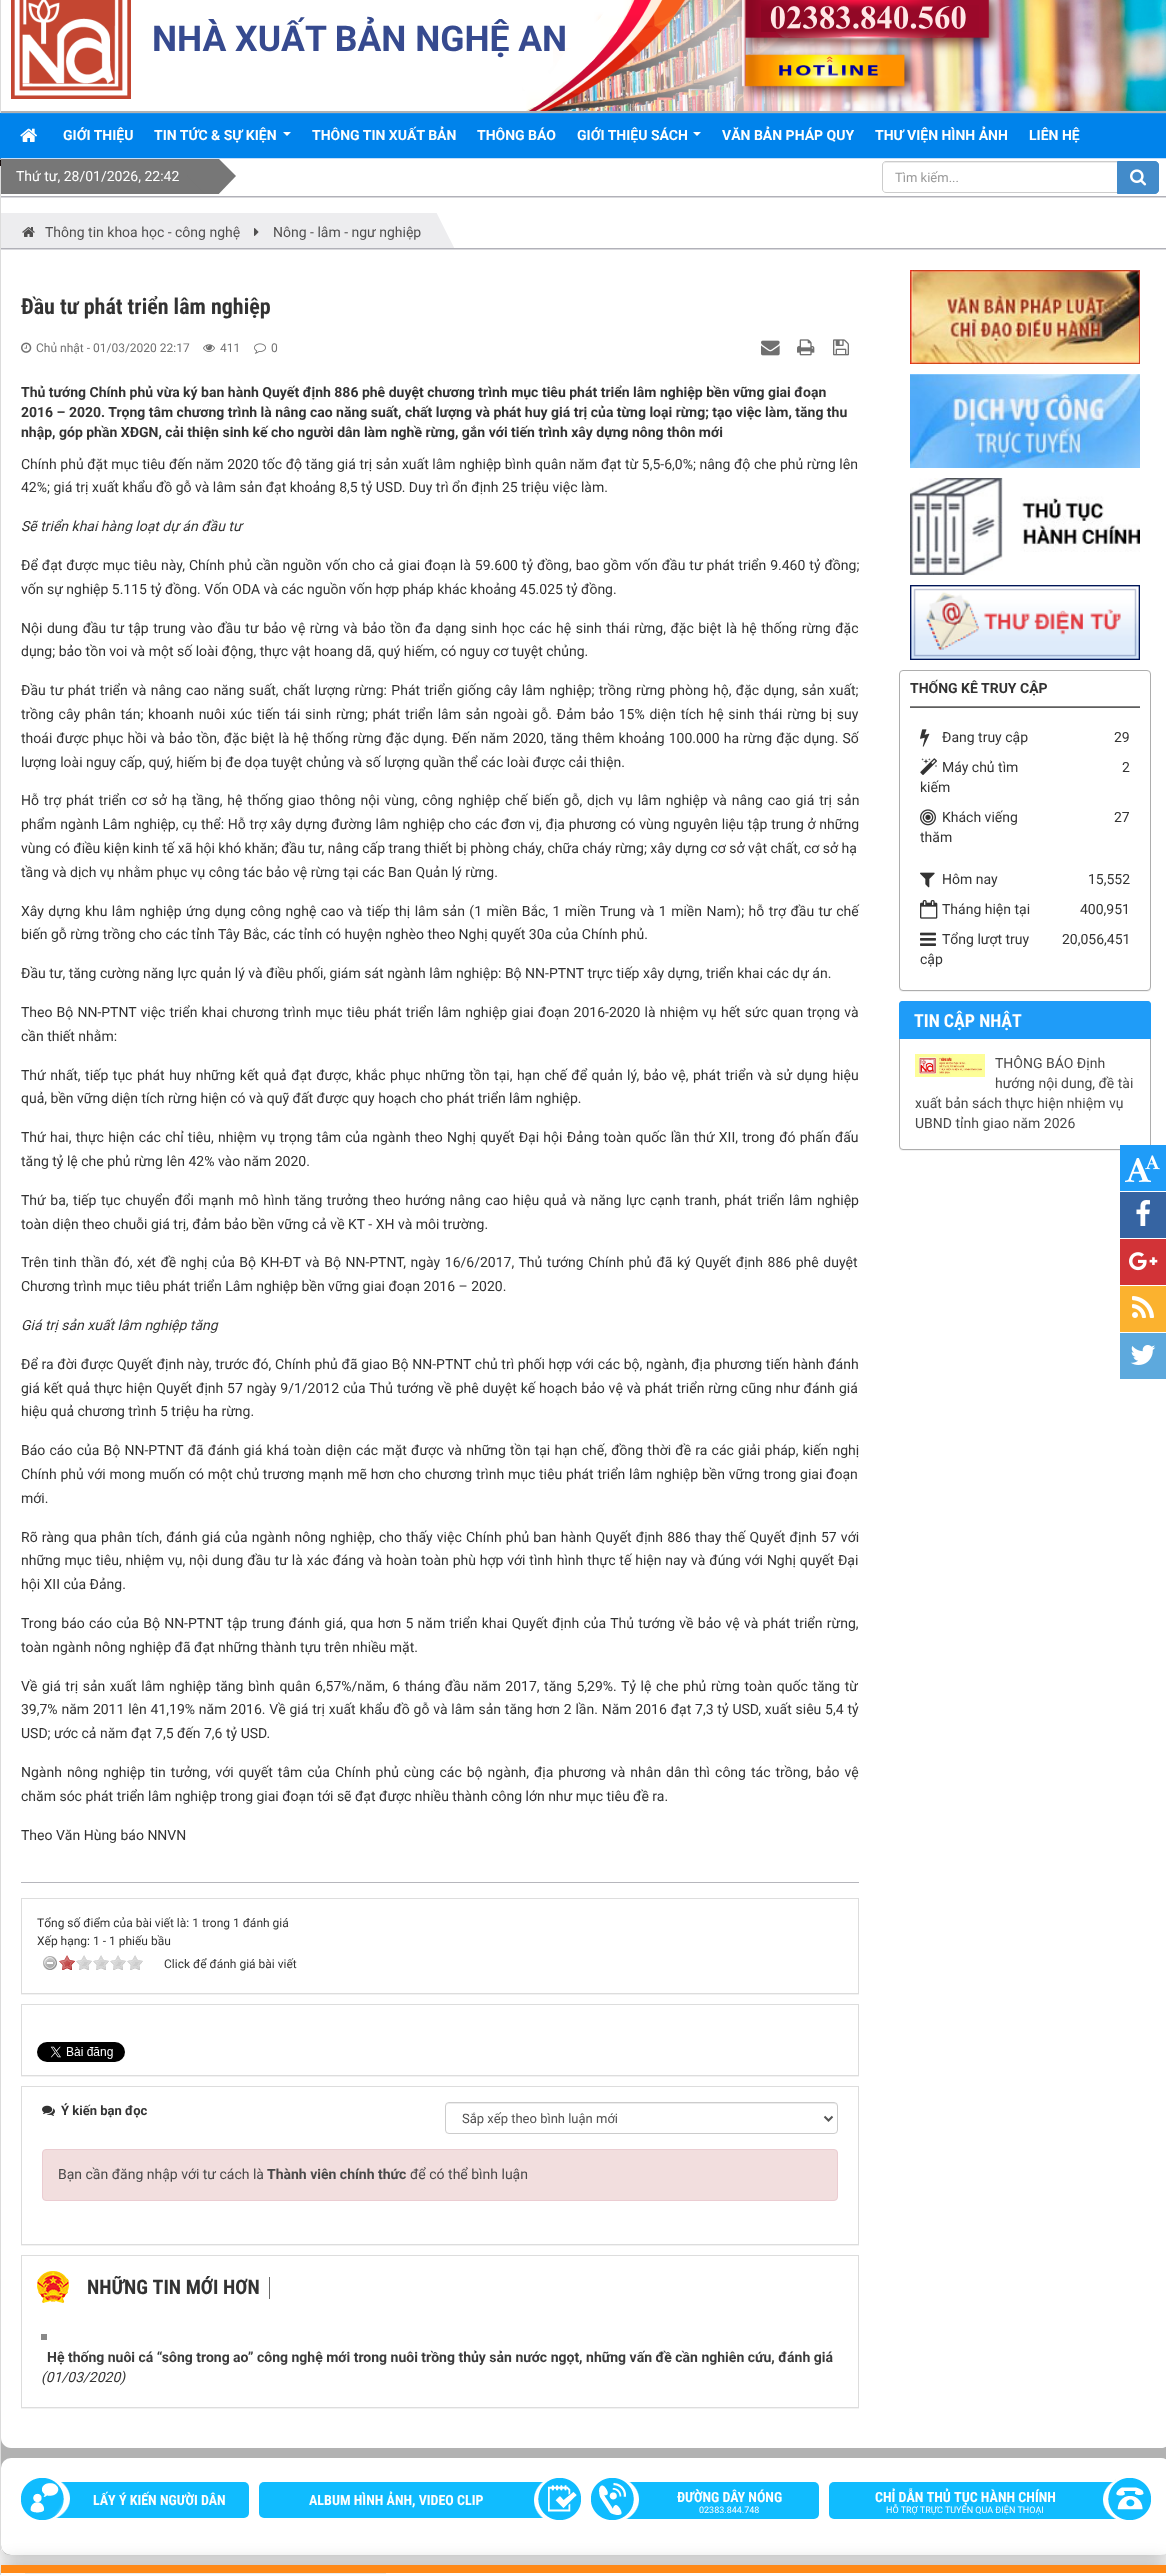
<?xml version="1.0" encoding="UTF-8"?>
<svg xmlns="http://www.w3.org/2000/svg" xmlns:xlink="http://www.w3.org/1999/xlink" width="1166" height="2575">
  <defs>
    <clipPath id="clip1"><path d="M 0 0 h 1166 v 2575 h -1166 z m 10 -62 h 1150 c 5.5 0 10 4.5 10 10 v 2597 c 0 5.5 -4.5 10 -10 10 h -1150 c -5.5 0 -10 -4.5 -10 -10 v -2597 c 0 -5.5 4.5 -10 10 -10 z" clip-rule="evenodd" /></clipPath>
    <clipPath id="clip2"><rect x="1" y="159" width="876" height="35" /></clipPath>
    <clipPath id="clip3"><rect x="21" y="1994" width="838" height="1" /></clipPath>
    <clipPath id="clip4"><rect x="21" y="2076" width="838" height="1" /></clipPath>
    <clipPath id="clip5"><rect x="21" y="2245" width="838" height="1" /></clipPath>
    <clipPath id="clip6"><rect x="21" y="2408" width="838" height="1" /></clipPath>
  </defs>
  <rect width="100%" height="100%" fill="#ffffff" />
  <g clip-path="url(#clip1)">
    <rect y="-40" width="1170" height="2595" rx="10" fill="#000000" fill-opacity="0.3" filter="blur(10px)" />
  </g>
  <path d="M 10 -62 h 1150 c 5 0 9 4 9 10 v 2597 c 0 6 -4 10 -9 10 h -1150 c -5 0 -9 -4 -9 -10 v -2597 c 0 -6 4 -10 9 -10 z" fill="#000000" fill-opacity="0.3" />
  <rect width="1" height="2550" fill="#dcdcdc" />
  <image x="1" y="0" width="1165" height="111" xlink:href="image1.png" />
  <image x="11" y="0" width="120" height="99" xlink:href="image2.png" />
  <rect x="1" y="114" width="1165" height="44" fill="#0083eb" />
  <rect x="1" y="158" width="1165" height="1" fill="#c4def9" />
  <rect x="1" y="113" width="1165" height="1" fill="#1a8fed" />
  <image x="0" y="113" width="1" height="53" xlink:href="image3.png" />
  <image x="20" y="128" width="17" height="14" xlink:href="image4.png" />
  <path d="M 283 132 h 8 l -4 4 z" fill="#ffffff" />
  <path d="M 693 132 h 8 l -4 4 z" fill="#ffffff" />
  <rect x="1" y="197" width="1165" height="1" fill="#d9d9dd" />
  <rect x="1" y="159" width="1165" height="37" fill="#ffffff" />
  <rect x="1" y="196" width="1165" height="1" fill="#b1b1b8" />
  <rect x="1" y="159" width="204" height="35" fill="#777777" />
  <g clip-path="url(#clip2)">
    <path d="M 212 152 l 24 24 l -24 25 l -25 -25 z" fill="#777777" />
  </g>
  <path d="M 886 163 h 231 v -1 h -231 c -2 0 -3 2 -3 4 c 0 -2 1 -3 3 -3 z" fill="#ececec" />
  <path d="M 886 161.5 h 231.5 v 31 h -231.5 c -2 0 -3.5 -1.5 -3.5 -3.5 v -24 c 0 -2 1.5 -3.5 3.5 -3.5 z" fill="none" stroke="#cccccc" />
  <path d="M 1117.5 161.5 h 37.5 c 2 0 3.5 1.5 3.5 3.5 v 25 c 0 2 -1.5 3.5 -3.5 3.5 h -37.5 z" fill="#428bca" stroke="#428bca" />
  <image x="1130" y="169" width="17" height="17" xlink:href="image5.png" />
  <rect x="1" y="249" width="1165" height="1" fill="#d9d9dd" />
  <rect x="1" y="198" width="1165" height="50" fill="#ffffff" />
  <rect x="1" y="248" width="1165" height="1" fill="#b1b1b8" />
  <image x="435" y="213" width="19" height="35" xlink:href="image6.png" />
  <rect x="1" y="213" width="434" height="35" fill="#ededef" />
  <image x="22" y="227" width="13" height="10" xlink:href="image7.png" />
  <image x="254" y="228" width="5" height="8" xlink:href="image8.png" />
  <path d="M 1 250 h 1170 v 2188 c 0 5.5 -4.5 10 -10 10 h -1150 c -5.5 0 -10 -4.5 -10 -10 z" fill="#ffffff" />
  <image x="21" y="342" width="11" height="11" xlink:href="image9.png" />
  <image x="203" y="344" width="12" height="8" xlink:href="image10.png" />
  <image x="254" y="343" width="12" height="11" xlink:href="image11.png" />
  <image x="761" y="340" width="19" height="16" xlink:href="image12.png" />
  <image x="797" y="339" width="18" height="17" xlink:href="image13.png" />
  <image x="833" y="339" width="16" height="17" xlink:href="image14.png" />
  <rect x="21" y="1882" width="838" height="1" fill="#b6b6bc" />
  <g clip-path="url(#clip3)">
    <rect x="21" y="1899" width="838" height="96" fill="#000000" fill-opacity="0.05" filter="blur(0.5px)" />
  </g>
  <rect x="21.5" y="1898.5" width="837" height="95" fill="none" stroke="#dddddd" />
  <image x="43" y="1956" width="14" height="14" xlink:href="image15.png" />
  <image x="59" y="1955" width="16" height="15" xlink:href="image16.png" />
  <image x="76" y="1955" width="16" height="15" xlink:href="image17.png" />
  <image x="93" y="1955" width="16" height="15" xlink:href="image17.png" />
  <image x="110" y="1955" width="16" height="15" xlink:href="image17.png" />
  <image x="127" y="1955" width="16" height="15" xlink:href="image17.png" />
  <g clip-path="url(#clip4)">
    <rect x="21" y="2005" width="838" height="72" fill="#000000" fill-opacity="0.05" filter="blur(0.5px)" />
  </g>
  <rect x="21.5" y="2004.5" width="837" height="71" fill="none" stroke="#dddddd" />
  <image x="37" y="2042" width="88" height="20" xlink:href="image18.png" />
  <g clip-path="url(#clip5)">
    <rect x="21" y="2087" width="838" height="159" fill="#000000" fill-opacity="0.05" filter="blur(0.5px)" />
  </g>
  <rect x="21.5" y="2086.5" width="837" height="158" fill="none" stroke="#dddddd" />
  <image x="42" y="2105" width="13" height="11" xlink:href="image19.png" />
  <path d="M 449 2104 h 385 c 2 0 3 1 3 3 c 0 -2 -1 -4 -3 -4 h -385 l -2 1 l -1 3 c 0 -2 1 -3 3 -3 z" fill="#ececec" />
  <rect x="445.5" y="2102.5" width="392" height="31" rx="3.5" fill="none" stroke="#cccccc" />
  <path d="M 824.5 2116.5 l 4 4 l 4 -4" fill="none" stroke="#555555" stroke-width="2" />
  <rect x="42.5" y="2149.5" width="795" height="51" rx="3.5" fill="#f2dede" stroke="#ebccd1" />
  <g clip-path="url(#clip6)">
    <rect x="21" y="2256" width="838" height="153" fill="#000000" fill-opacity="0.05" filter="blur(0.5px)" />
  </g>
  <rect x="21.5" y="2255.5" width="837" height="152" fill="none" stroke="#dddddd" />
  <image x="37" y="2271" width="32" height="32" xlink:href="image20.png" />
  <rect x="269" y="2277" width="1" height="22" fill="#6a6a6a" />
  <rect x="41" y="2334" width="6" height="6" fill="#898989" />
  <image x="910" y="270" width="230" height="94" xlink:href="image21.png" />
  <image x="910" y="374" width="230" height="94" xlink:href="image22.png" />
  <image x="910" y="478" width="230" height="97" xlink:href="image23.png" />
  <image x="910" y="585" width="230" height="75" xlink:href="image24.png" />
  <rect x="899" y="671" width="252" height="321" rx="4" fill="#000000" fill-opacity="0.05" filter="blur(0.5px)" />
  <rect x="899.5" y="670.5" width="251" height="320" rx="3.5" fill="#ffffff" stroke="#adadad" />
  <rect x="910" y="707" width="230" height="1" fill="#5e5e5d" />
  <rect x="910" y="706" width="230" height="1" fill="#868686" />
  <image x="920" y="729" width="10" height="18" xlink:href="image25.png" />
  <image x="920" y="758" width="17" height="17" xlink:href="image26.png" />
  <image x="920" y="809" width="16" height="17" xlink:href="image27.png" />
  <image x="920" y="872" width="15" height="16" xlink:href="image28.png" />
  <image x="920" y="900" width="18" height="19" xlink:href="image29.png" />
  <image x="920" y="932" width="16" height="14" xlink:href="image30.png" />
  <rect x="899" y="1002" width="252" height="149" rx="4" fill="#000000" fill-opacity="0.05" filter="blur(0.5px)" />
  <rect x="899.5" y="1001.5" width="251" height="148" rx="3.5" fill="#ffffff" stroke="#adadad" />
  <path d="M 902 1001 h 246 c 1.5 0 3 1.5 3 3 v 35 h -252 v -35 c 0 -1.5 1.5 -3 3 -3 z" fill="#1f9cf8" />
  <image x="915" y="1054" width="70" height="23" xlink:href="image31.png" />
  <rect x="1" y="2458" width="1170" height="97" rx="10" fill="#ffffff" />
  <rect x="41" y="2482" width="208" height="36" rx="5" fill="#10bcff" />
  <image x="21" y="2478" width="49" height="42" xlink:href="image32.png" />
  <rect x="259" y="2482" width="302" height="36" rx="5" fill="#10bcff" />
  <image x="534" y="2478" width="47" height="42" xlink:href="image33.png" />
  <rect x="611" y="2482" width="208" height="37" rx="5" fill="#10bcff" />
  <image x="591" y="2478" width="48" height="42" xlink:href="image34.png" />
  <rect x="829" y="2482" width="302" height="37" rx="5" fill="#10bcff" />
  <image x="1103" y="2478" width="48" height="42" xlink:href="image35.png" />
  <rect y="2565" width="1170" height="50" rx="10" fill="#000000" fill-opacity="0.3" filter="blur(10px)" />
  <path d="M 10 2565 h 1150 c 5 0 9 4 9 10 v 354 c 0 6 -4 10 -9 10 h -1150 c -5 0 -9 -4 -9 -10 v -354 c 0 -6 4 -10 9 -10 z" fill="#ffffff" />
  <rect y="2570" width="1" height="5" fill="#dcdcdc" />
  <rect x="1" y="2565" width="1165" height="8" fill="#ff8917" />
  <rect x="25" y="2573" width="361" height="1" fill="#eaeeef" />
  <rect x="1120" y="1145" width="46" height="46" fill="#1f9cf8" />
  <image x="1125" y="1158" width="26" height="24" xlink:href="image36.png" />
  <image x="1145" y="1155" width="15" height="15" xlink:href="image37.png" />
  <rect x="1120" y="1192" width="46" height="46" fill="#3664a2" />
  <image x="1136" y="1200" width="14" height="26" xlink:href="image38.png" />
  <rect x="1120" y="1239" width="46" height="46" fill="#d23337" />
  <image x="1129" y="1252" width="29" height="19" xlink:href="image39.png" />
  <rect x="1120" y="1286" width="46" height="46" fill="#fbb22f" />
  <image x="1132" y="1296" width="22" height="22" xlink:href="image40.png" />
  <rect x="1120" y="1333" width="46" height="46" fill="#5da9dd" />
  <image x="1130" y="1345" width="26" height="20" xlink:href="image41.png" />
  <text x="152" y="51" style="font-family: Roboto; font-size: 35.5px; font-weight: bold; fill: #364a8f">NHÀ XUẤT BẢN NGHỆ AN</text>
  <text x="63" y="140" style="font-family: Roboto; font-size: 14px; font-weight: bold; fill: #ffffff">GIỚI THIỆU</text>
  <text x="154" y="140" style="font-family: Roboto; font-size: 14px; font-weight: bold; fill: #ffffff">TIN TỨC &amp; SỰ KIỆN</text>
  <text x="312" y="140" style="font-family: Roboto; font-size: 14px; font-weight: bold; fill: #ffffff">THÔNG TIN XUẤT BẢN</text>
  <text x="477" y="140" style="font-family: Roboto; font-size: 14px; font-weight: bold; fill: #ffffff">THÔNG BÁO</text>
  <text x="577" y="140" style="font-family: Roboto; font-size: 14px; font-weight: bold; fill: #ffffff">GIỚI THIỆU SÁCH</text>
  <text x="722" y="140" style="font-family: Roboto; font-size: 14px; font-weight: bold; fill: #ffffff">VĂN BẢN PHÁP QUY</text>
  <text x="875" y="140" style="font-family: Roboto; font-size: 14px; font-weight: bold; fill: #ffffff">THƯ VIỆN HÌNH ẢNH</text>
  <text x="1029" y="140" style="font-family: Roboto; font-size: 14px; font-weight: bold; fill: #ffffff">LIÊN HỆ</text>
  <text x="16" y="181" style="font-family: Roboto; font-size: 14px; fill: #ffffff">Thứ tư, 28/01/2026, 22:42</text>
  <text x="895" y="182" style="font-family: Roboto; font-size: 13px; fill: #999999">Tìm kiếm...</text>
  <text x="45" y="237" style="font-family: Roboto; font-size: 14px; fill: #515050">Thông tin khoa học - công nghệ</text>
  <text x="273" y="237" style="font-family: Roboto; font-size: 14px; fill: #515050">Nông - lâm - ngư nghiệp</text>
  <text x="21" y="314" style="font-family: Roboto Condensed; font-size: 22px; font-weight: bold; fill: #333333">Đầu tư phát triển lâm nghiệp</text>
  <text x="36" y="352" style="font-family: Roboto; font-size: 12px; fill: #707070">Chủ nhật - 01/03/2020 22:17</text>
  <text x="220" y="352" style="font-family: Roboto; font-size: 12px; fill: #707070">411</text>
  <text x="271" y="352" style="font-family: Roboto; font-size: 12px; fill: #707070">0</text>
  <text x="21" y="397" style="font-family: Roboto; font-size: 14px; font-weight: bold; fill: #333333">Thủ tướng Chính phủ vừa ký ban hành Quyết định 886 phê duyệt chương trình mục tiêu phát triển lâm nghiệp bền vững giai đoạn</text>
  <text x="21" y="417" style="font-family: Roboto; font-size: 14px; font-weight: bold; fill: #333333">2016 – 2020. Trọng tâm chương trình là nâng cao năng suất, chất lượng và phát huy giá trị của từng loại rừng; tạo việc làm, tăng thu</text>
  <text x="21" y="437" style="font-family: Roboto; font-size: 14px; font-weight: bold; fill: #333333">nhập, góp phần XĐGN, cải thiện sinh kế cho người dân làm nghề rừng, gắn với tiến trình xây dựng nông thôn mới</text>
  <text x="21" y="469" word-spacing="0.1" style="font-family: Roboto; font-size: 14px; fill: #333333">Chính phủ đặt mục tiêu đến năm 2020 tốc độ tăng giá trị sản xuất lâm nghiệp bình quân năm đạt từ 5,5-6,0%; nâng độ che phủ rừng lên</text>
  <text x="21" y="492" style="font-family: Roboto; font-size: 14px; fill: #333333">42%; giá trị xuất khẩu đồ gỗ và lâm sản đạt khoảng 8,5 tỷ USD. Duy trì ổn định 25 triệu việc làm.</text>
  <text x="21" y="531" style="font-family: Roboto; font-size: 14px; font-style: italic; fill: #333333">Sẽ triển khai hàng loạt dự án đầu tư</text>
  <text x="21" y="570" word-spacing="0.5" style="font-family: Roboto; font-size: 14px; fill: #333333">Để đạt được mục tiêu này, Chính phủ cần nguồn vốn cho cả giai đoạn là 59.600 tỷ đồng, bao gồm vốn đầu tư phát triển 9.460 tỷ đồng;</text>
  <text x="21" y="594" style="font-family: Roboto; font-size: 14px; fill: #333333">vốn sự nghiệp 5.115 tỷ đồng. Vốn ODA và các nguồn vốn hợp pháp khác khoảng 45.025 tỷ đồng.</text>
  <text x="21" y="633" word-spacing="1.05" style="font-family: Roboto; font-size: 14px; fill: #333333">Nội dung đầu tư tập trung vào đầu tư bảo vệ rừng và bảo tồn đa dạng sinh học các hệ sinh thái rừng, đặc biệt là hệ thống rừng đặc</text>
  <text x="21" y="656" style="font-family: Roboto; font-size: 14px; fill: #333333">dụng; bảo tồn voi và một số loài động, thực vật hoang dã, quý hiếm, có nguy cơ tuyệt chủng.</text>
  <text x="21" y="695" word-spacing="0.9" style="font-family: Roboto; font-size: 14px; fill: #333333">Đầu tư phát triển và nâng cao năng suất, chất lượng rừng: Phát triển giống cây lâm nghiệp; trồng rừng phòng hộ, đặc dụng, sản xuất;</text>
  <text x="21" y="719" word-spacing="1.25" style="font-family: Roboto; font-size: 14px; fill: #333333">trồng cây phân tán; khoanh nuôi xúc tiến tái sinh rừng; phát triển lâm sản ngoài gỗ. Đảm bảo 15% diện tích hệ sinh thái rừng bị suy</text>
  <text x="21" y="743" word-spacing="0.6" style="font-family: Roboto; font-size: 14px; fill: #333333">thoái được phục hồi và bảo tồn, đặc biệt là hệ thống rừng đặc dụng. Đến năm 2020, tăng thêm khoảng 100.000 ha rừng đặc dụng. Số</text>
  <text x="21" y="767" style="font-family: Roboto; font-size: 14px; fill: #333333">lượng loài nguy cấp, quý, hiếm bị đe dọa tuyệt chủng và số lượng quần thể các loài được cải thiện.</text>
  <text x="21" y="805" word-spacing="1.4" style="font-family: Roboto; font-size: 14px; fill: #333333">Hỗ trợ phát triển cơ sở hạ tầng, hệ thống giao thông nội vùng, công nghiệp chế biến gỗ, dịch vụ lâm nghiệp và nâng cao giá trị sản</text>
  <text x="21" y="829" word-spacing="0.25" style="font-family: Roboto; font-size: 14px; fill: #333333">phẩm ngành Lâm nghiệp, cụ thể: Hỗ trợ xây dựng đường lâm nghiệp cho các đơn vị, địa phương có vùng nguyên liệu tập trung ở những</text>
  <text x="21" y="853" style="font-family: Roboto; font-size: 14px; fill: #333333">vùng có điều kiện kinh tế xã hội khó khăn; đầu tư, nâng cấp trang thiết bị phòng cháy, chữa cháy rừng; xây dựng cơ sở vật chất, cơ sở hạ</text>
  <text x="21" y="877" style="font-family: Roboto; font-size: 14px; fill: #333333">tầng và dịch vụ nhằm phục vụ công tác bảo vệ rừng tại các Ban Quản lý rừng.</text>
  <text x="21" y="916" word-spacing="0.95" style="font-family: Roboto; font-size: 14px; fill: #333333">Xây dựng khu lâm nghiệp ứng dụng công nghệ cao và tiếp thị lâm sản (1 miền Bắc, 1 miền Trung và 1 miền Nam); hỗ trợ đầu tư chế</text>
  <text x="21" y="939" style="font-family: Roboto; font-size: 14px; fill: #333333">biến gỗ rừng trồng cho các tỉnh Tây Bắc, các tỉnh có huyện nghèo theo Nghị quyết 30a của Chính phủ.</text>
  <text x="21" y="978" style="font-family: Roboto; font-size: 14px; fill: #333333">Đầu tư, tăng cường năng lực quản lý và điều phối, giám sát ngành lâm nghiệp: Bộ NN-PTNT trực tiếp xây dựng, triển khai các dự án.</text>
  <text x="21" y="1017" word-spacing="0.65" style="font-family: Roboto; font-size: 14px; fill: #333333">Theo Bộ NN-PTNT việc triển khai chương trình mục tiêu phát triển lâm nghiệp giai đoạn 2016-2020 là nhiệm vụ hết sức quan trọng và</text>
  <text x="21" y="1041" style="font-family: Roboto; font-size: 14px; fill: #333333">cần thiết nhằm:</text>
  <text x="21" y="1080" word-spacing="1" style="font-family: Roboto; font-size: 14px; fill: #333333">Thứ nhất, tiếp tục phát huy những kết quả đạt được, khắc phục những tồn tại, hạn chế để quản lý, bảo vệ, phát triển và sử dụng hiệu</text>
  <text x="21" y="1103" style="font-family: Roboto; font-size: 14px; fill: #333333">quả, bền vững diện tích rừng hiện có và quỹ đất được quy hoạch cho phát triển lâm nghiệp.</text>
  <text x="21" y="1142" word-spacing="0.75" style="font-family: Roboto; font-size: 14px; fill: #333333">Thứ hai, thực hiện các chỉ tiêu, nhiệm vụ trọng tâm của ngành theo Nghị quyết Đại hội Đảng toàn quốc lần thứ XII, trong đó phấn đấu</text>
  <text x="21" y="1166" style="font-family: Roboto; font-size: 14px; fill: #333333">tăng tỷ lệ che phủ rừng lên 42% vào năm 2020.</text>
  <text x="21" y="1205" word-spacing="1.1" style="font-family: Roboto; font-size: 14px; fill: #333333">Thứ ba, tiếp tục chuyển đổi mạnh mô hình tăng trưởng theo hướng nâng cao hiệu quả và năng lực cạnh tranh, phát triển lâm nghiệp</text>
  <text x="21" y="1229" style="font-family: Roboto; font-size: 14px; fill: #333333">toàn diện theo chuỗi giá trị, đảm bảo bền vững cả về KT - XH và môi trường.</text>
  <text x="21" y="1267" word-spacing="1.1" style="font-family: Roboto; font-size: 14px; fill: #333333">Trên tinh thần đó, xét đề nghị của Bộ KH-ĐT và Bộ NN-PTNT, ngày 16/6/2017, Thủ tướng Chính phủ đã ký Quyết định 886 phê duyệt</text>
  <text x="21" y="1291" style="font-family: Roboto; font-size: 14px; fill: #333333">Chương trình mục tiêu phát triển Lâm nghiệp bền vững giai đoạn 2016 – 2020.</text>
  <text x="21" y="1330" style="font-family: Roboto; font-size: 14px; font-style: italic; fill: #333333">Giá trị sản xuất lâm nghiệp tăng</text>
  <text x="21" y="1369" word-spacing="0.25" style="font-family: Roboto; font-size: 14px; fill: #333333">Để ra đời được Quyết định này, trước đó, Chính phủ đã giao Bộ NN-PTNT chủ trì phối hợp với các bộ, ngành, địa phương tiến hành đánh</text>
  <text x="21" y="1393" word-spacing="0.4" style="font-family: Roboto; font-size: 14px; fill: #333333">giá kết quả thực hiện Quyết định 57 ngày 9/1/2012 của Thủ tướng về phê duyệt kế hoạch bảo vệ và phát triển rừng cũng như đánh giá</text>
  <text x="21" y="1416" style="font-family: Roboto; font-size: 14px; fill: #333333">hiệu quả chương trình 5 triệu ha rừng.</text>
  <text x="21" y="1455" word-spacing="0.75" style="font-family: Roboto; font-size: 14px; fill: #333333">Báo cáo của Bộ NN-PTNT đã đánh giá khá toàn diện các mặt được và những tồn tại hạn chế, đồng thời đề ra các giải pháp, kiến nghị</text>
  <text x="21" y="1479" word-spacing="0.3" style="font-family: Roboto; font-size: 14px; fill: #333333">Chính phủ với mong muốn có một chủ trương mạnh mẽ hơn cho chương trình mục tiêu phát triển lâm nghiệp bền vững trong giai đoạn</text>
  <text x="21" y="1503" style="font-family: Roboto; font-size: 14px; fill: #333333">mới.</text>
  <text x="21" y="1542" word-spacing="0.7" style="font-family: Roboto; font-size: 14px; fill: #333333">Rõ ràng qua phân tích, đánh giá của ngành nông nghiệp, cho thấy việc Chính phủ ban hành Quyết định 886 thay thế Quyết định 57 với</text>
  <text x="21" y="1565" word-spacing="0.4" style="font-family: Roboto; font-size: 14px; fill: #333333">những mục tiêu, nhiệm vụ, nội dung đầu tư là xác đáng và hoàn toàn phù hợp với tình hình thực tế hiện nay và đúng với Nghị quyết Đại</text>
  <text x="21" y="1589" style="font-family: Roboto; font-size: 14px; fill: #333333">hội XII của Đảng.</text>
  <text x="21" y="1628" word-spacing="0.8" style="font-family: Roboto; font-size: 14px; fill: #333333">Trong báo cáo của Bộ NN-PTNT tập trung đánh giá, qua hơn 5 năm triển khai Quyết định của Thủ tướng về bảo vệ và phát triển rừng,</text>
  <text x="21" y="1652" style="font-family: Roboto; font-size: 14px; fill: #333333">toàn ngành nông nghiệp đã đạt những thành tựu trên nhiều mặt.</text>
  <text x="21" y="1691" word-spacing="1.1" style="font-family: Roboto; font-size: 14px; fill: #333333">Về giá trị sản xuất lâm nghiệp tăng bình quân 6,57%/năm, 6 tháng đầu năm 2017, tăng 5,29%. Tỷ lệ che phủ rừng toàn quốc tăng từ</text>
  <text x="21" y="1714" word-spacing="0.35" style="font-family: Roboto; font-size: 14px; fill: #333333">39,7% năm 2011 lên 41,19% năm 2016. Về giá trị xuất khẩu đồ gỗ và lâm sản tăng hơn 2 lần. Năm 2016 đạt 7,3 tỷ USD, xuất siêu 5,4 tỷ</text>
  <text x="21" y="1738" style="font-family: Roboto; font-size: 14px; fill: #333333">USD; ước cả năm đạt 7,5 đến 7,6 tỷ USD.</text>
  <text x="21" y="1777" word-spacing="1.5" style="font-family: Roboto; font-size: 14px; fill: #333333">Ngành nông nghiệp tin tưởng, với quyết tâm của Chính phủ cùng các bộ ngành, địa phương và nhân dân thì công tác trồng, bảo vệ</text>
  <text x="21" y="1801" style="font-family: Roboto; font-size: 14px; fill: #333333">chăm sóc phát triển lâm nghiệp trong giai đoạn tới sẽ đạt được nhiều thành công lớn như mục tiêu đề ra.</text>
  <text x="21" y="1840" style="font-family: Roboto; font-size: 14px; fill: #333333">Theo Văn Hùng báo NNVN</text>
  <text x="37" y="1927" style="font-family: Roboto; font-size: 12px; fill: #333333">Tổng số điểm của bài viết là: 1 trong 1 đánh giá</text>
  <text x="37" y="1945" style="font-family: Roboto; font-size: 12px; fill: #333333">Xếp hạng: 1 - 1 phiếu bầu</text>
  <text x="164" y="1968" style="font-family: Roboto; font-size: 12px; fill: #333333">Click để đánh giá bài viết</text>
  <text x="61" y="2115" style="font-family: Roboto; font-size: 13px; font-weight: bold; fill: #333333">Ý kiến bạn đọc</text>
  <text x="462" y="2123" style="font-family: Roboto; font-size: 13px; fill: #515050">Sắp xếp theo bình luận mới</text>
  <text x="58" y="2179" style="font-family: Roboto; font-size: 14px; fill: #494949">Bạn cần đăng nhập với tư cách là</text>
  <text x="267" y="2179" style="font-family: Roboto; font-size: 14px; font-weight: bold; fill: #494949">Thành viên chính thức</text>
  <text x="410" y="2179" style="font-family: Roboto; font-size: 14px; fill: #494949">để có thể bình luận</text>
  <text x="87" y="2294" style="font-family: Roboto Condensed; font-size: 20px; font-weight: bold; fill: #333333">NHỮNG TIN MỚI HƠN</text>
  <text x="47" y="2362" style="font-family: Roboto; font-size: 14px; font-weight: bold; fill: #3b3b3b">Hệ thống nuôi cá “sông trong ao” công nghệ mới trong nuôi trồng thủy sản nước ngọt, những vấn đề cần nghiên cứu, đánh giá</text>
  <text x="41" y="2382" style="font-family: Roboto; font-size: 14px; font-style: italic; fill: #333333">(01/03/2020)</text>
  <text x="910" y="693" style="font-family: Roboto; font-size: 14px; font-weight: bold; fill: #333333">THỐNG KÊ TRUY CẬP</text>
  <text x="942" y="742" style="font-family: Roboto; font-size: 14px; fill: #333333">Đang truy cập</text>
  <text x="1114" y="742" style="font-family: Roboto; font-size: 14px; fill: #333333">29</text>
  <text x="942" y="772" style="font-family: Roboto; font-size: 14px; fill: #333333">Máy chủ tìm</text>
  <text x="920" y="792" style="font-family: Roboto; font-size: 14px; fill: #333333">kiếm</text>
  <text x="1122" y="772" style="font-family: Roboto; font-size: 14px; fill: #333333">2</text>
  <text x="942" y="822" style="font-family: Roboto; font-size: 14px; fill: #333333">Khách viếng</text>
  <text x="920" y="842" style="font-family: Roboto; font-size: 14px; fill: #333333">thăm</text>
  <text x="1114" y="822" style="font-family: Roboto; font-size: 14px; fill: #333333">27</text>
  <text x="942" y="884" style="font-family: Roboto; font-size: 14px; fill: #333333">Hôm nay</text>
  <text x="1088" y="884" style="font-family: Roboto; font-size: 14px; fill: #333333">15,552</text>
  <text x="942" y="914" style="font-family: Roboto; font-size: 14px; fill: #333333">Tháng hiện tại</text>
  <text x="1080" y="914" style="font-family: Roboto; font-size: 14px; fill: #333333">400,951</text>
  <text x="942" y="944" style="font-family: Roboto; font-size: 14px; fill: #333333">Tổng lượt truy</text>
  <text x="920" y="964" style="font-family: Roboto; font-size: 14px; fill: #333333">cập</text>
  <text x="1062" y="944" style="font-family: Roboto; font-size: 14px; fill: #333333">20,056,451</text>
  <text x="914" y="1027" style="font-family: Roboto Condensed; font-size: 18px; font-weight: bold; fill: #ffffff">TIN CẬP NHẬT</text>
  <text x="995" y="1068" style="font-family: Roboto; font-size: 14px; fill: #494949">THÔNG BÁO Định</text>
  <text x="995" y="1088" style="font-family: Roboto; font-size: 14px; fill: #494949">hướng nội dung, đề tài</text>
  <text x="915" y="1108" style="font-family: Roboto; font-size: 14px; fill: #494949">xuất bản sách thực hiện nhiệm vụ</text>
  <text x="915" y="1128" style="font-family: Roboto; font-size: 14px; fill: #494949">UBND tỉnh giao năm 2026</text>
  <text x="93" y="2505" style="font-family: Roboto Condensed; font-size: 14px; font-weight: bold; fill: #ffffff">LẤY Ý KIẾN NGƯỜI DÂN</text>
  <text x="309" y="2505" style="font-family: Roboto Condensed; font-size: 14px; font-weight: bold; fill: #ffffff">ALBUM HÌNH ẢNH, VIDEO CLIP</text>
  <text x="677" y="2502" style="font-family: Roboto Condensed; font-size: 14px; font-weight: bold; fill: #ffffff">ĐƯỜNG DÂY NÓNG</text>
  <text x="699" y="2513" style="font-family: Roboto; font-size: 9px; fill: #ffffff">02383.844.748</text>
  <text x="875" y="2502" style="font-family: Roboto Condensed; font-size: 14px; font-weight: bold; fill: #ffffff">CHỈ DẪN THỦ TỤC HÀNH CHÍNH</text>
  <text x="886" y="2513" style="font-family: Roboto; font-size: 9px; fill: #ffffff">HỖ TRỢ TRỰC TUYẾN QUA ĐIỆN THOẠI</text>
</svg>
